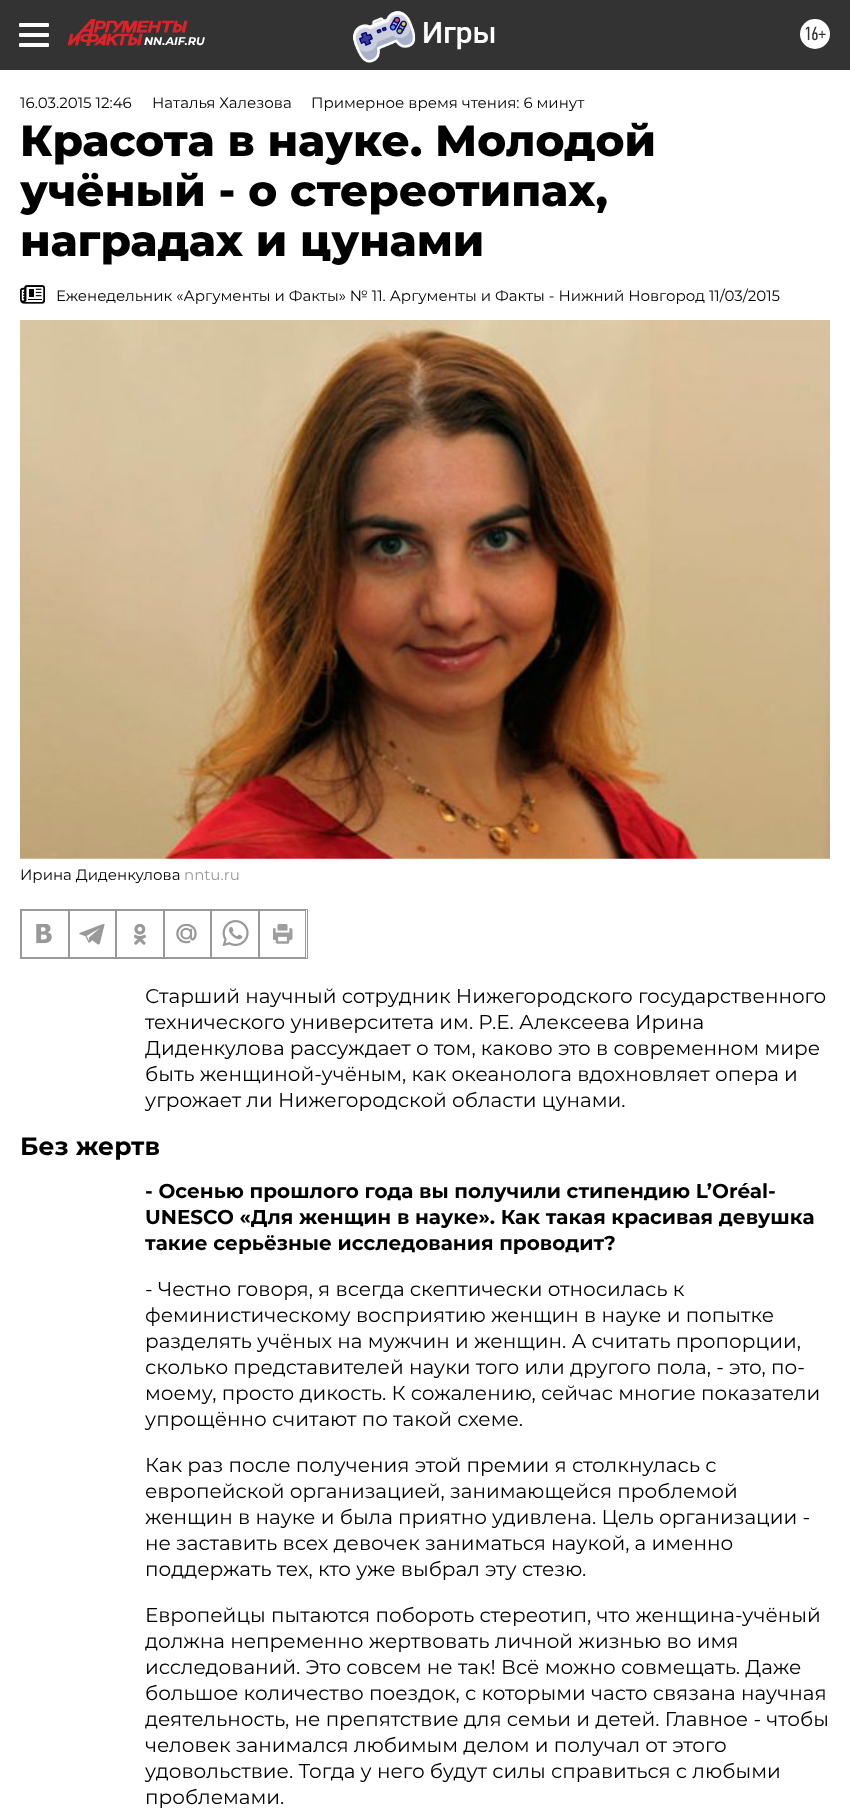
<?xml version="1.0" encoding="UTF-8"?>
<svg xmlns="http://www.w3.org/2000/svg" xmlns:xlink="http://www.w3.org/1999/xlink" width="850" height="1810">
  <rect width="100%" height="100%" fill="#ffffff" />
  <rect width="850" height="70" fill="#333333" />
  <rect x="19" y="23" width="30" height="4" rx="1" fill="#ffffff" />
  <rect x="19" y="33" width="30" height="4" rx="1" fill="#ffffff" />
  <rect x="19" y="43" width="30" height="4" rx="1" fill="#ffffff" />
  <image x="68" y="19" width="120" height="27" xlink:href="image1.png" />
  <image x="353" y="11" width="142" height="52" xlink:href="image2.png" />
  <circle cx="815" cy="34" r="15" fill="#ffffff" />
  <image x="20" y="285" width="25" height="19" xlink:href="image3.png" />
  <image x="20" y="320" width="810" height="539" xlink:href="image4.png" />
  <rect x="20.5" y="909.5" width="287" height="49" fill="none" stroke="#999999" />
  <rect x="21.5" y="910.5" width="47" height="47" fill="none" stroke="#999999" />
  <image x="36" y="924" width="16" height="20" xlink:href="image5.png" />
  <rect x="69.5" y="910.5" width="46" height="47" fill="none" stroke="#999999" />
  <image x="79" y="924" width="26" height="21" xlink:href="image6.png" />
  <rect x="116.5" y="910.5" width="47" height="47" fill="none" stroke="#999999" />
  <image x="134" y="924" width="12" height="21" xlink:href="image7.png" />
  <rect x="164.5" y="910.5" width="46" height="47" fill="none" stroke="#999999" />
  <image x="176" y="924" width="21" height="20" xlink:href="image8.png" />
  <rect x="211.5" y="910.5" width="47" height="47" fill="none" stroke="#999999" />
  <image x="222" y="920" width="27" height="27" xlink:href="image9.png" />
  <rect x="259.5" y="910.5" width="46" height="47" fill="none" stroke="#999999" />
  <image x="273" y="924" width="20" height="20" xlink:href="image10.png" />
  <text x="144" y="45" style="font-family: Montserrat; font-size: 11.25px; font-weight: bold; font-style: italic; fill: #ffffff">NN.AIF.RU</text>
  <text x="804" y="40" style="font-family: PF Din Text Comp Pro; font-size: 19px; fill: #333333">16+</text>
  <text x="20" y="108" style="font-family: Montserrat; font-size: 15px; fill: #000000">16.03.2015 12:46</text>
  <text x="152" y="108" style="font-family: Montserrat; font-size: 15px; fill: #000000">Наталья Халезова</text>
  <text x="311" y="108" style="font-family: Montserrat; font-size: 15px; fill: #000000">Примерное время чтения: 6 минут</text>
  <text x="20" y="156" style="font-family: Montserrat; font-size: 43.75px; font-weight: 800; fill: #000000">Красота в науке. Молодой</text>
  <text x="20" y="206" style="font-family: Montserrat; font-size: 43.75px; font-weight: 800; fill: #000000">учёный - о стереотипах,</text>
  <text x="20" y="256" style="font-family: Montserrat; font-size: 43.75px; font-weight: 800; fill: #000000">наградах и цунами</text>
  <text x="56" y="301" style="font-family: Montserrat; font-size: 15px; fill: #000000">Еженедельник «Аргументы и Факты» № 11. Аргументы и Факты - Нижний Новгород 11/03/2015</text>
  <text x="20" y="880" style="font-family: Montserrat; font-size: 15px; fill: #000000">Ирина Диденкулова</text>
  <text x="184" y="880" style="font-family: Montserrat; font-size: 15px; fill: #999999">nntu.ru</text>
  <text x="145" y="1003" style="font-family: Montserrat; font-size: 20px; fill: #000000">Старший научный сотрудник Нижегородского государственного</text>
  <text x="145" y="1029" style="font-family: Montserrat; font-size: 20px; fill: #000000">технического университета им. Р.Е. Алексеева Ирина</text>
  <text x="145" y="1055" style="font-family: Montserrat; font-size: 20px; fill: #000000">Диденкулова рассуждает о том, каково это в современном мире</text>
  <text x="145" y="1081" style="font-family: Montserrat; font-size: 20px; fill: #000000">быть женщиной-учёным, как океанолога вдохновляет опера и</text>
  <text x="145" y="1107" style="font-family: Montserrat; font-size: 20px; fill: #000000">угрожает ли Нижегородской области цунами.</text>
  <text x="20" y="1155" style="font-family: Montserrat; font-size: 25px; font-weight: bold; fill: #000000">Без жертв</text>
  <text x="145" y="1198" style="font-family: Montserrat; font-size: 20px; font-weight: bold; fill: #000000">- Осенью прошлого года вы получили стипендию L’Oréal-</text>
  <text x="145" y="1224" style="font-family: Montserrat; font-size: 20px; font-weight: bold; fill: #000000">UNESCO «Для женщин в науке». Как такая красивая девушка</text>
  <text x="145" y="1250" style="font-family: Montserrat; font-size: 20px; font-weight: bold; fill: #000000">такие серьёзные исследования проводит?</text>
  <text x="145" y="1296" style="font-family: Montserrat; font-size: 20px; fill: #000000">- Честно говоря, я всегда скептически относилась к</text>
  <text x="145" y="1322" style="font-family: Montserrat; font-size: 20px; fill: #000000">феминистическому восприятию женщин в науке и попытке</text>
  <text x="145" y="1348" style="font-family: Montserrat; font-size: 20px; fill: #000000">разделять учёных на мужчин и женщин. А считать пропорции,</text>
  <text x="145" y="1374" style="font-family: Montserrat; font-size: 20px; fill: #000000">сколько представителей науки того или другого пола, - это, по-</text>
  <text x="145" y="1400" style="font-family: Montserrat; font-size: 20px; fill: #000000">моему, просто дикость. К сожалению, сейчас многие показатели</text>
  <text x="145" y="1426" style="font-family: Montserrat; font-size: 20px; fill: #000000">упрощённо считают по такой схеме.</text>
  <text x="145" y="1472" style="font-family: Montserrat; font-size: 20px; fill: #000000">Как раз после получения этой премии я столкнулась с</text>
  <text x="145" y="1498" style="font-family: Montserrat; font-size: 20px; fill: #000000">европейской организацией, занимающейся проблемой</text>
  <text x="145" y="1524" style="font-family: Montserrat; font-size: 20px; fill: #000000">женщин в науке и была приятно удивлена. Цель организации -</text>
  <text x="145" y="1550" style="font-family: Montserrat; font-size: 20px; fill: #000000">не заставить всех девочек заниматься наукой, а именно</text>
  <text x="145" y="1576" style="font-family: Montserrat; font-size: 20px; fill: #000000">поддержать тех, кто уже выбрал эту стезю.</text>
  <text x="145" y="1622" style="font-family: Montserrat; font-size: 20px; fill: #000000">Европейцы пытаются побороть стереотип, что женщина-учёный</text>
  <text x="145" y="1648" style="font-family: Montserrat; font-size: 20px; fill: #000000">должна непременно жертвовать личной жизнью во имя</text>
  <text x="145" y="1674" style="font-family: Montserrat; font-size: 20px; fill: #000000">исследований. Это совсем не так! Всё можно совмещать. Даже</text>
  <text x="145" y="1700" style="font-family: Montserrat; font-size: 20px; fill: #000000">большое количество поездок, с которыми часто связана научная</text>
  <text x="145" y="1726" style="font-family: Montserrat; font-size: 20px; fill: #000000">деятельность, не препятствие для семьи и детей. Главное - чтобы</text>
  <text x="145" y="1752" style="font-family: Montserrat; font-size: 20px; fill: #000000">человек занимался любимым делом и получал от этого</text>
  <text x="145" y="1778" style="font-family: Montserrat; font-size: 20px; fill: #000000">удовольствие. Тогда у него будут силы справиться с любыми</text>
  <text x="145" y="1804" style="font-family: Montserrat; font-size: 20px; fill: #000000">проблемами.</text>
</svg>
